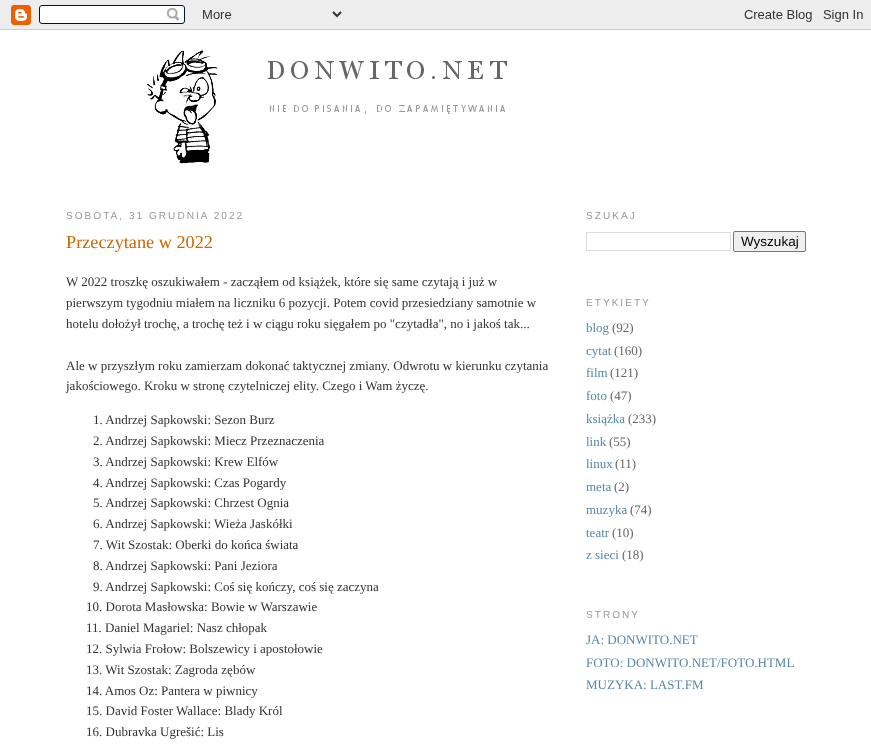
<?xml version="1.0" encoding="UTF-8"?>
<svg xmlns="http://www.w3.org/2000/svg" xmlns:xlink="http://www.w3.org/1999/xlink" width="871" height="745">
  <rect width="100%" height="100%" fill="#ffffff" />
  <image x="0" y="0" width="871" height="30" xlink:href="image1.png" />
  <image x="147" y="50" width="360" height="114" xlink:href="image2.png" />
  <rect x="586.5" y="232.5" width="144" height="18" fill="none" stroke="#dddddd" />
  <rect x="733.5" y="231.5" width="72" height="20" rx="1.5" fill="#efefef" stroke="#767676" />
  <text x="66" y="219" style="font-family: Liberation Sans; font-size: 10.1px; letter-spacing: 2px; fill: #999999">SOBOTA, 31 GRUDNIA 2022</text>
  <text x="66" y="248" style="font-family: Liberation Serif; font-size: 18.25px; fill: #cc6600">Przeczytane w 2022</text>
  <text x="66" y="286" style="font-family: Liberation Serif; font-size: 13px; fill: #333333">W 2022 troszkę oszukiwałem - zacząłem od książek, które się same czytają i już w</text>
  <text x="66" y="307" style="font-family: Liberation Serif; font-size: 13px; fill: #333333">pierwszym tygodniu miałem na liczniku 6 pozycji. Potem covid przesiedziany samotnie w</text>
  <text x="66" y="328" style="font-family: Liberation Serif; font-size: 13px; fill: #333333">hotelu dołożył trochę, a trochę też i w ciągu roku sięgałem po "czytadła", no i jakoś tak...</text>
  <text x="66" y="370" style="font-family: Liberation Serif; font-size: 13px; fill: #333333">Ale w przyszłym roku zamierzam dokonać taktycznej zmiany. Odwrotu w kierunku czytania</text>
  <text x="66" y="390" style="font-family: Liberation Serif; font-size: 13px; fill: #333333">jakościowego. Kroku w stronę czytelniczej elity. Czego i Wam życzę.</text>
  <text x="93" y="424" style="font-family: Liberation Serif; font-size: 13px; fill: #333333">1. Andrzej Sapkowski: Sezon Burz</text>
  <text x="93" y="445" style="font-family: Liberation Serif; font-size: 13px; fill: #333333">2. Andrzej Sapkowski: Miecz Przeznaczenia</text>
  <text x="93" y="466" style="font-family: Liberation Serif; font-size: 13px; fill: #333333">3. Andrzej Sapkowski: Krew Elfów</text>
  <text x="93" y="487" style="font-family: Liberation Serif; font-size: 13px; fill: #333333">4. Andrzej Sapkowski: Czas Pogardy</text>
  <text x="93" y="507" style="font-family: Liberation Serif; font-size: 13px; fill: #333333">5. Andrzej Sapkowski: Chrzest Ognia</text>
  <text x="93" y="528" style="font-family: Liberation Serif; font-size: 13px; fill: #333333">6. Andrzej Sapkowski: Wieża Jaskółki</text>
  <text x="93" y="549" style="font-family: Liberation Serif; font-size: 13px; fill: #333333">7. Wit Szostak: Oberki do końca świata</text>
  <text x="93" y="570" style="font-family: Liberation Serif; font-size: 13px; fill: #333333">8. Andrzej Sapkowski: Pani Jeziora</text>
  <text x="93" y="591" style="font-family: Liberation Serif; font-size: 13px; fill: #333333">9. Andrzej Sapkowski: Coś się kończy, coś się zaczyna</text>
  <text x="86" y="611" style="font-family: Liberation Serif; font-size: 13px; fill: #333333">10. Dorota Masłowska: Bowie w Warszawie</text>
  <text x="86" y="632" style="font-family: Liberation Serif; font-size: 13px; fill: #333333">11. Daniel Magariel: Nasz chłopak</text>
  <text x="86" y="653" style="font-family: Liberation Serif; font-size: 13px; fill: #333333">12. Sylwia Frołow: Bolszewicy i apostołowie</text>
  <text x="86" y="674" style="font-family: Liberation Serif; font-size: 13px; fill: #333333">13. Wit Szostak: Zagroda zębów</text>
  <text x="86" y="695" style="font-family: Liberation Serif; font-size: 13px; fill: #333333">14. Amos Oz: Pantera w piwnicy</text>
  <text x="86" y="715" style="font-family: Liberation Serif; font-size: 13px; fill: #333333">15. David Foster Wallace: Blady Król</text>
  <text x="86" y="736" style="font-family: Liberation Serif; font-size: 13px; fill: #333333">16. Dubravka Ugrešić: Lis</text>
  <text x="586" y="219" style="font-family: Liberation Sans; font-size: 10.1px; letter-spacing: 2px; fill: #999999">SZUKAJ</text>
  <text x="741" y="246" style="font-family: Liberation Sans; font-size: 13.5px; fill: #000000">Wyszukaj</text>
  <text x="586" y="306" style="font-family: Liberation Sans; font-size: 10.1px; letter-spacing: 2px; fill: #999999">ETYKIETY</text>
  <text x="586" y="332" style="font-family: Liberation Serif; font-size: 13px; fill: #5588aa">blog</text>
  <text x="612" y="332" style="font-family: Liberation Serif; font-size: 13px; fill: #666666">(92)</text>
  <text x="586" y="355" style="font-family: Liberation Serif; font-size: 13px; fill: #5588aa">cytat</text>
  <text x="614" y="355" style="font-family: Liberation Serif; font-size: 13px; fill: #666666">(160)</text>
  <text x="586" y="377" style="font-family: Liberation Serif; font-size: 13px; fill: #5588aa">film</text>
  <text x="610" y="377" style="font-family: Liberation Serif; font-size: 13px; fill: #666666">(121)</text>
  <text x="586" y="400" style="font-family: Liberation Serif; font-size: 13px; fill: #5588aa">foto</text>
  <text x="610" y="400" style="font-family: Liberation Serif; font-size: 13px; fill: #666666">(47)</text>
  <text x="586" y="423" style="font-family: Liberation Serif; font-size: 13px; fill: #5588aa">książka</text>
  <text x="628" y="423" style="font-family: Liberation Serif; font-size: 13px; fill: #666666">(233)</text>
  <text x="586" y="446" style="font-family: Liberation Serif; font-size: 13px; fill: #5588aa">link</text>
  <text x="609" y="446" style="font-family: Liberation Serif; font-size: 13px; fill: #666666">(55)</text>
  <text x="586" y="468" style="font-family: Liberation Serif; font-size: 13px; fill: #5588aa">linux</text>
  <text x="615" y="468" style="font-family: Liberation Serif; font-size: 13px; fill: #666666">(11)</text>
  <text x="586" y="491" style="font-family: Liberation Serif; font-size: 13px; fill: #5588aa">meta</text>
  <text x="614" y="491" style="font-family: Liberation Serif; font-size: 13px; fill: #666666">(2)</text>
  <text x="586" y="514" style="font-family: Liberation Serif; font-size: 13px; fill: #5588aa">muzyka</text>
  <text x="630" y="514" style="font-family: Liberation Serif; font-size: 13px; fill: #666666">(74)</text>
  <text x="586" y="537" style="font-family: Liberation Serif; font-size: 13px; fill: #5588aa">teatr</text>
  <text x="612" y="537" style="font-family: Liberation Serif; font-size: 13px; fill: #666666">(10)</text>
  <text x="586" y="559" style="font-family: Liberation Serif; font-size: 13px; fill: #5588aa">z sieci</text>
  <text x="622" y="559" style="font-family: Liberation Serif; font-size: 13px; fill: #666666">(18)</text>
  <text x="586" y="618" style="font-family: Liberation Sans; font-size: 10.1px; letter-spacing: 2px; fill: #999999">STRONY</text>
  <text x="586" y="644" style="font-family: Liberation Serif; font-size: 13px; fill: #5588aa">JA: DONWITO.NET</text>
  <text x="586" y="667" style="font-family: Liberation Serif; font-size: 13px; fill: #5588aa">FOTO: DONWITO.NET/FOTO.HTML</text>
  <text x="586" y="689" style="font-family: Liberation Serif; font-size: 13px; fill: #5588aa">MUZYKA: LAST.FM</text>
</svg>
